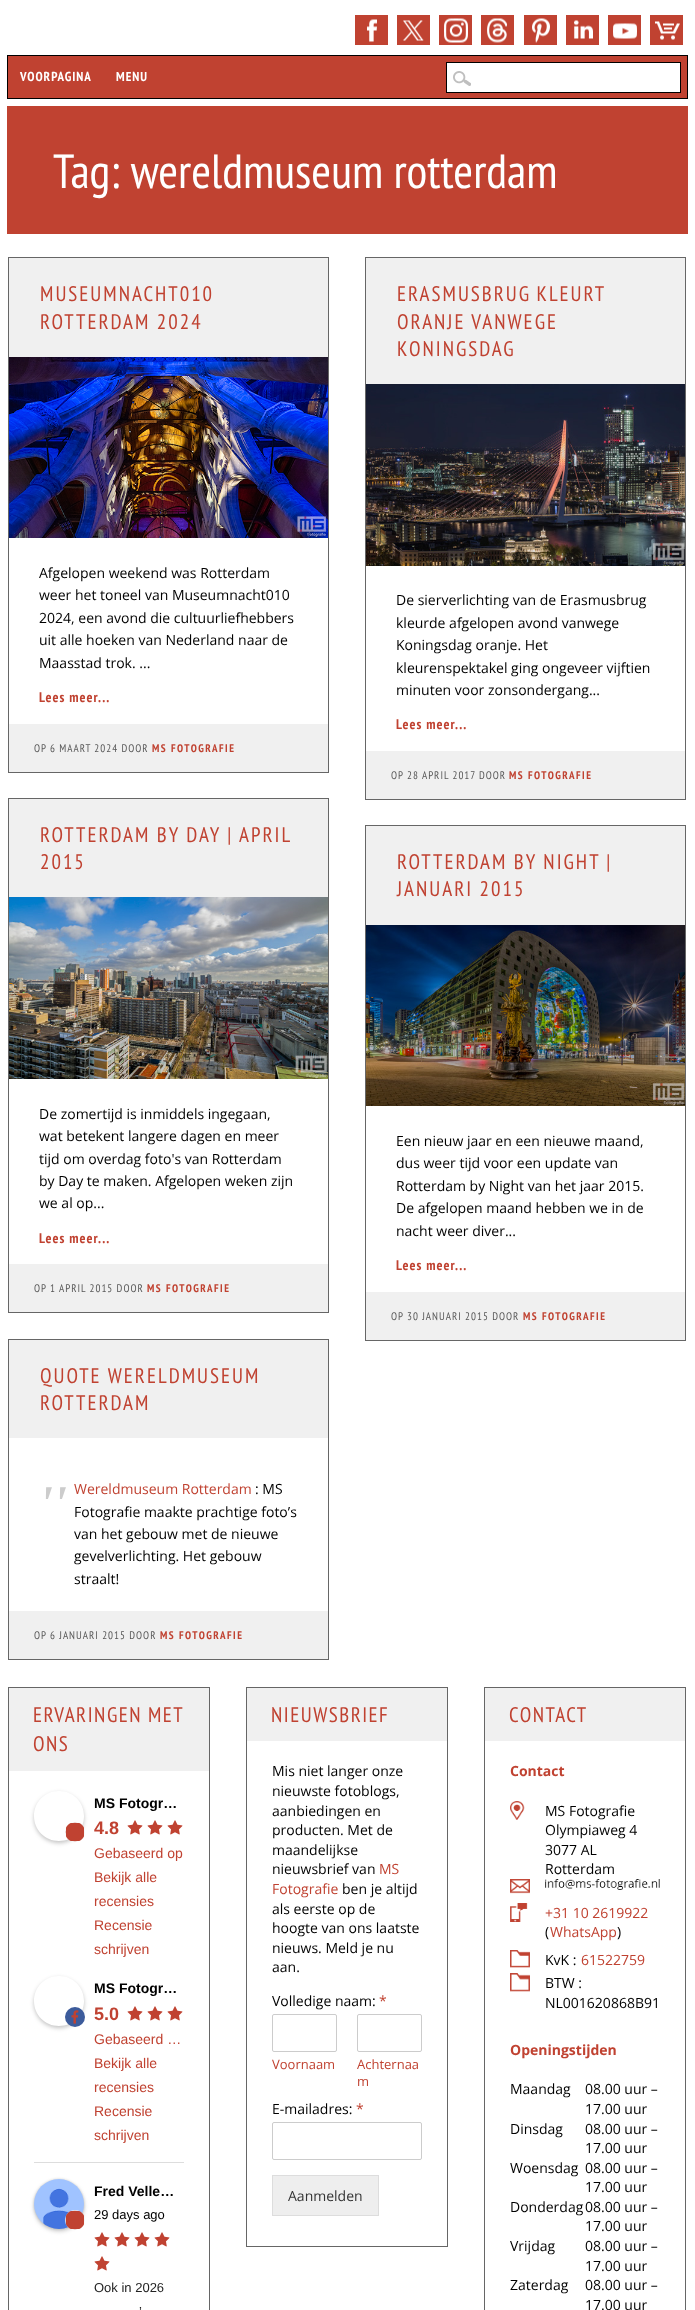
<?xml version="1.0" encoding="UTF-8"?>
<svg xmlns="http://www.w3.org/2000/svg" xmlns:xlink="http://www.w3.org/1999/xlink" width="695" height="2310">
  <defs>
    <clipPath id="clip1"><path d="M 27 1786 h 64 v 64 h -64 z m 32 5 c 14 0 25 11 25 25 c 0 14 -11 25 -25 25 c -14 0 -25 -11 -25 -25 c 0 -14 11 -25 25 -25 z" clip-rule="evenodd" /></clipPath>
    <clipPath id="clip2"><path d="M 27 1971 h 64 v 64 h -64 z m 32 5 c 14 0 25 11 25 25 c 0 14 -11 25 -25 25 c -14 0 -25 -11 -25 -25 c 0 -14 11 -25 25 -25 z" clip-rule="evenodd" /></clipPath>
  </defs>
  <rect width="100%" height="100%" fill="#ffffff" />
  <rect x="355" y="15" width="33" height="30" fill="#c04231" />
  <image x="367" y="19" width="10" height="23" xlink:href="image1.png" />
  <rect x="397" y="15" width="33" height="30" fill="#c04231" />
  <image x="403" y="20" width="21" height="21" xlink:href="image2.png" />
  <rect x="439" y="15" width="33" height="30" fill="#c04231" />
  <image x="444" y="18" width="24" height="25" xlink:href="image3.png" />
  <rect x="481" y="15" width="33" height="30" fill="#c04231" />
  <image x="487" y="18" width="20" height="25" xlink:href="image4.png" />
  <rect x="524" y="15" width="33" height="30" fill="#c04231" />
  <image x="532" y="18" width="18" height="25" xlink:href="image5.png" />
  <rect x="566" y="15" width="33" height="30" fill="#c04231" />
  <image x="574" y="20" width="19" height="19" xlink:href="image6.png" />
  <rect x="608" y="15" width="33" height="30" fill="#c04231" />
  <image x="613" y="23" width="24" height="16" xlink:href="image7.png" />
  <rect x="650" y="15" width="33" height="30" fill="#c04231" />
  <image x="655" y="21" width="25" height="19" xlink:href="image8.png" />
  <rect x="7.5" y="55.5" width="680" height="43" fill="none" stroke="#000000" />
  <rect x="8" y="56" width="679" height="42" fill="#c04231" />
  <rect x="447" y="63" width="233" height="29" fill="#ffffff" />
  <image x="453" y="71" width="18" height="15" xlink:href="image9.png" />
  <rect x="446.5" y="62.5" width="234" height="30" fill="none" stroke="#000000" />
  <rect x="7" y="106" width="681" height="128" fill="#c04231" />
  <rect x="8.5" y="257.5" width="320" height="515" fill="none" stroke="#666666" />
  <rect x="9" y="258" width="319" height="99" fill="#f0f0f0" />
  <image x="9" y="357" width="319" height="181" xlink:href="image10.png" />
  <rect x="9" y="724" width="319" height="48" fill="#f0f0f0" />
  <rect x="365.5" y="257.5" width="320" height="542" fill="none" stroke="#666666" />
  <rect x="366" y="258" width="319" height="126" fill="#f0f0f0" />
  <image x="366" y="384" width="319" height="182" xlink:href="image11.png" />
  <rect x="366" y="751" width="319" height="48" fill="#f0f0f0" />
  <rect x="8.5" y="798.5" width="320" height="514" fill="none" stroke="#666666" />
  <rect x="9" y="799" width="319" height="98" fill="#f0f0f0" />
  <image x="9" y="897" width="319" height="182" xlink:href="image12.png" />
  <rect x="9" y="1264" width="319" height="48" fill="#f0f0f0" />
  <rect x="365.5" y="825.5" width="320" height="515" fill="none" stroke="#666666" />
  <rect x="366" y="826" width="319" height="99" fill="#f0f0f0" />
  <image x="366" y="925" width="319" height="181" xlink:href="image13.png" />
  <rect x="366" y="1292" width="319" height="48" fill="#f0f0f0" />
  <rect x="8.5" y="1339.5" width="320" height="320" fill="none" stroke="#666666" />
  <rect x="9" y="1340" width="319" height="98" fill="#f0f0f0" />
  <rect x="9" y="1611" width="319" height="48" fill="#f0f0f0" />
  <rect x="8.5" y="1687.5" width="201" height="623" fill="none" stroke="#666666" />
  <rect x="9" y="1688" width="200" height="83" fill="#f0f0f0" />
  <g clip-path="url(#clip1)">
    <rect x="34" y="1793" width="50" height="50" rx="25" fill="#000000" fill-opacity="0.24" filter="blur(2px)" />
  </g>
  <circle cx="75" cy="1832" r="10" fill="#f5f5f5" />
  <image x="65" y="1822" width="19" height="20" xlink:href="image14.png" />
  <image x="127" y="1820" width="16" height="15" xlink:href="image15.png" />
  <image x="147" y="1820" width="16" height="15" xlink:href="image15.png" />
  <image x="167" y="1820" width="16" height="15" xlink:href="image15.png" />
  <g clip-path="url(#clip2)">
    <rect x="34" y="1978" width="50" height="50" rx="25" fill="#000000" fill-opacity="0.24" filter="blur(2px)" />
  </g>
  <circle cx="75" cy="2017" r="10" fill="#3c5b9b" />
  <image x="71" y="2010" width="8" height="14" xlink:href="image16.png" />
  <image x="127" y="2006" width="16" height="15" xlink:href="image15.png" />
  <image x="147" y="2006" width="16" height="15" xlink:href="image15.png" />
  <image x="167" y="2006" width="16" height="15" xlink:href="image15.png" />
  <rect x="34" y="2162" width="150" height="1" fill="#dddddd" />
  <rect x="34" y="2181" width="50" height="50" rx="25" fill="#000000" fill-opacity="0.24" filter="blur(2px)" />
  <rect x="34" y="2179" width="50" height="50" rx="25" fill="#000000" fill-opacity="0.12" filter="blur(1px)" />
  <image x="34" y="2179" width="50" height="50" xlink:href="image17.png" />
  <circle cx="75" cy="2220" r="10" fill="#f5f5f5" />
  <image x="65" y="2210" width="19" height="20" xlink:href="image18.png" />
  <image x="94" y="2232" width="16" height="15" xlink:href="image15.png" />
  <image x="114" y="2232" width="16" height="15" xlink:href="image15.png" />
  <image x="134" y="2232" width="16" height="15" xlink:href="image15.png" />
  <image x="154" y="2232" width="16" height="15" xlink:href="image15.png" />
  <image x="94" y="2256" width="16" height="15" xlink:href="image15.png" />
  <rect x="246.5" y="1687.5" width="201" height="559" fill="none" stroke="#666666" />
  <rect x="247" y="1688" width="200" height="53" fill="#f0f0f0" />
  <rect x="272.5" y="2014.5" width="64" height="37" rx="1.5" fill="none" stroke="#cccccc" />
  <rect x="357.5" y="2014.5" width="64" height="37" rx="1.5" fill="none" stroke="#cccccc" />
  <rect x="272.5" y="2122.5" width="149" height="37" rx="1.5" fill="none" stroke="#cccccc" />
  <rect x="272.5" y="2175.5" width="106" height="40" fill="#eeeeee" stroke="#dddddd" />
  <rect x="484.5" y="1687.5" width="201" height="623" fill="none" stroke="#666666" />
  <rect x="485" y="1688" width="200" height="53" fill="#f0f0f0" />
  <image x="510" y="1801" width="15" height="19" xlink:href="image19.png" />
  <image x="510" y="1879" width="20" height="15" xlink:href="image20.png" />
  <image x="545" y="1879" width="115" height="11" xlink:href="image21.png" />
  <image x="510" y="1903" width="18" height="19" xlink:href="image22.png" />
  <image x="510" y="1950" width="20" height="18" xlink:href="image23.png" />
  <image x="510" y="1973" width="20" height="19" xlink:href="image24.png" />
  <text x="20" y="81" style="font-family: PT Sans Narrow; font-size: 13px; font-weight: bold; letter-spacing: 1px; fill: #ffffff">VOORPAGINA</text>
  <text x="116" y="81" style="font-family: PT Sans Narrow; font-size: 13px; font-weight: bold; letter-spacing: 1px; fill: #ffffff">MENU</text>
  <text x="53" y="188" style="font-family: PT Sans Narrow; font-size: 48px; fill: #ffffff">Tag: wereldmuseum rotterdam</text>
  <text x="40" y="301" style="font-family: PT Sans Narrow; font-size: 21px; letter-spacing: 2px; fill: #c04231">MUSEUMNACHT010</text>
  <text x="40" y="329" style="font-family: PT Sans Narrow; font-size: 21px; letter-spacing: 2px; fill: #c04231">ROTTERDAM 2024</text>
  <text x="39" y="578" style="font-family: Open Sans; font-size: 14px; fill: #000000">Afgelopen weekend was Rotterdam</text>
  <text x="39" y="600" style="font-family: Open Sans; font-size: 14px; fill: #000000">weer het toneel van Museumnacht010</text>
  <text x="39" y="623" style="font-family: Open Sans; font-size: 14px; fill: #000000">2024, een avond die cultuurliefhebbers</text>
  <text x="39" y="645" style="font-family: Open Sans; font-size: 14px; fill: #000000">uit alle hoeken van Nederland naar de</text>
  <text x="39" y="668" style="font-family: Open Sans; font-size: 14px; fill: #000000">Maasstad trok. ...</text>
  <text x="39" y="702" style="font-family: PT Sans Narrow; font-size: 14px; font-weight: bold; letter-spacing: 1px; fill: #c04231">Lees meer...</text>
  <text x="34" y="752" style="font-family: PT Sans Narrow; font-size: 11px; letter-spacing: 1px; fill: #585858">OP 6 MAART 2024 DOOR</text>
  <text x="152" y="752" style="font-family: PT Sans Narrow; font-size: 11px; font-weight: bold; letter-spacing: 1.5px; fill: #c04231">MS FOTOGRAFIE</text>
  <text x="397" y="301" word-spacing="-1" style="font-family: PT Sans Narrow; font-size: 21px; letter-spacing: 2px; fill: #c04231">ERASMUSBRUG KLEURT</text>
  <text x="397" y="329" style="font-family: PT Sans Narrow; font-size: 21px; letter-spacing: 2px; fill: #c04231">ORANJE VANWEGE</text>
  <text x="397" y="356" style="font-family: PT Sans Narrow; font-size: 21px; letter-spacing: 2px; fill: #c04231">KONINGSDAG</text>
  <text x="396" y="605" style="font-family: Open Sans; font-size: 14px; fill: #000000">De sierverlichting van de Erasmusbrug</text>
  <text x="396" y="628" style="font-family: Open Sans; font-size: 14px; fill: #000000">kleurde afgelopen avond vanwege</text>
  <text x="396" y="650" style="font-family: Open Sans; font-size: 14px; fill: #000000">Koningsdag oranje. Het</text>
  <text x="396" y="673" style="font-family: Open Sans; font-size: 14px; fill: #000000">kleurenspektakel ging ongeveer vijftien</text>
  <text x="396" y="695" style="font-family: Open Sans; font-size: 14px; fill: #000000">minuten voor zonsondergang...</text>
  <text x="396" y="729" style="font-family: PT Sans Narrow; font-size: 14px; font-weight: bold; letter-spacing: 1px; fill: #c04231">Lees meer...</text>
  <text x="391" y="779" style="font-family: PT Sans Narrow; font-size: 11px; letter-spacing: 1px; fill: #585858">OP</text>
  <text x="407" y="779" style="font-family: PT Sans Narrow; font-size: 11px; letter-spacing: 1px; fill: #585858">28 APRIL 2017</text>
  <text x="479" y="779" style="font-family: PT Sans Narrow; font-size: 11px; letter-spacing: 1px; fill: #585858">DOOR</text>
  <text x="509" y="779" style="font-family: PT Sans Narrow; font-size: 11px; font-weight: bold; letter-spacing: 1.5px; fill: #c04231">MS FOTOGRAFIE</text>
  <text x="40" y="842" style="font-family: PT Sans Narrow; font-size: 21px; letter-spacing: 2px; fill: #c04231">ROTTERDAM BY DAY | APRIL</text>
  <text x="40" y="869" style="font-family: PT Sans Narrow; font-size: 21px; letter-spacing: 2px; fill: #c04231">2015</text>
  <text x="39" y="1119" style="font-family: Open Sans; font-size: 14px; fill: #000000">De zomertijd is inmiddels ingegaan,</text>
  <text x="39" y="1141" style="font-family: Open Sans; font-size: 14px; fill: #000000">wat betekent langere dagen en meer</text>
  <text x="39" y="1164" style="font-family: Open Sans; font-size: 14px; fill: #000000">tijd om overdag foto's van Rotterdam</text>
  <text x="39" y="1186" style="font-family: Open Sans; font-size: 14px; fill: #000000">by Day te maken. Afgelopen weken zijn</text>
  <text x="39" y="1208" style="font-family: Open Sans; font-size: 14px; fill: #000000">we al op...</text>
  <text x="39" y="1243" style="font-family: PT Sans Narrow; font-size: 14px; font-weight: bold; letter-spacing: 1px; fill: #c04231">Lees meer...</text>
  <text x="34" y="1292" style="font-family: PT Sans Narrow; font-size: 11px; letter-spacing: 1px; fill: #585858">OP 1 APRIL 2015 DOOR</text>
  <text x="147" y="1292" style="font-family: PT Sans Narrow; font-size: 11px; font-weight: bold; letter-spacing: 1.5px; fill: #c04231">MS FOTOGRAFIE</text>
  <text x="397" y="869" style="font-family: PT Sans Narrow; font-size: 21px; letter-spacing: 2px; fill: #c04231">ROTTERDAM BY NIGHT |</text>
  <text x="397" y="896" style="font-family: PT Sans Narrow; font-size: 21px; letter-spacing: 2px; fill: #c04231">JANUARI 2015</text>
  <text x="396" y="1146" style="font-family: Open Sans; font-size: 14px; fill: #000000">Een nieuw jaar en een nieuwe maand,</text>
  <text x="396" y="1168" style="font-family: Open Sans; font-size: 14px; fill: #000000">dus weer tijd voor een update van</text>
  <text x="396" y="1191" style="font-family: Open Sans; font-size: 14px; fill: #000000">Rotterdam by Night van het jaar 2015.</text>
  <text x="396" y="1213" style="font-family: Open Sans; font-size: 14px; fill: #000000">De afgelopen maand hebben we in de</text>
  <text x="396" y="1236" style="font-family: Open Sans; font-size: 14px; fill: #000000">nacht weer diver...</text>
  <text x="396" y="1270" style="font-family: PT Sans Narrow; font-size: 14px; font-weight: bold; letter-spacing: 1px; fill: #c04231">Lees meer...</text>
  <text x="391" y="1320" style="font-family: PT Sans Narrow; font-size: 11px; letter-spacing: 1px; fill: #585858">OP 30 JANUARI 2015 DOOR</text>
  <text x="523" y="1320" style="font-family: PT Sans Narrow; font-size: 11px; font-weight: bold; letter-spacing: 1.5px; fill: #c04231">MS FOTOGRAFIE</text>
  <text x="40" y="1383" style="font-family: PT Sans Narrow; font-size: 21px; letter-spacing: 2px; fill: #c04231">QUOTE WERELDMUSEUM</text>
  <text x="40" y="1410" style="font-family: PT Sans Narrow; font-size: 21px; letter-spacing: 2px; fill: #c04231">ROTTERDAM</text>
  <text x="39" y="1520" style="font-family: Liberation Serif; font-size: 50px; font-weight: bold; font-style: italic; fill: #cccccc">''</text>
  <text x="74" y="1494" style="font-family: Open Sans; font-size: 14px; fill: #c04231">Wereldmuseum Rotterdam</text>
  <text x="255" y="1494" style="font-family: Open Sans; font-size: 14px; fill: #000000">: MS</text>
  <text x="74" y="1517" style="font-family: Open Sans; font-size: 14px; fill: #000000">Fotografie maakte prachtige foto’s</text>
  <text x="74" y="1539" style="font-family: Open Sans; font-size: 14px; fill: #000000">van het gebouw met de nieuwe</text>
  <text x="74" y="1561" style="font-family: Open Sans; font-size: 14px; fill: #000000">gevelverlichting. Het gebouw</text>
  <text x="74" y="1584" style="font-family: Open Sans; font-size: 14px; fill: #000000">straalt!</text>
  <text x="34" y="1639" style="font-family: PT Sans Narrow; font-size: 11px; letter-spacing: 1px; fill: #585858">OP 6 JANUARI 2015 DOOR</text>
  <text x="160" y="1639" style="font-family: PT Sans Narrow; font-size: 11px; font-weight: bold; letter-spacing: 1.5px; fill: #c04231">MS FOTOGRAFIE</text>
  <text x="33" y="1722" style="font-family: PT Sans Narrow; font-size: 21px; letter-spacing: 1.5px; fill: #c04231">ERVARINGEN MET</text>
  <text x="33" y="1751" style="font-family: PT Sans Narrow; font-size: 21px; letter-spacing: 1.5px; fill: #c04231">ONS</text>
  <text x="94" y="1808" style="font-family: Liberation Sans; font-size: 14px; font-weight: bold; fill: #000000">MS Fotogr…</text>
  <text x="94" y="1834" style="font-family: Liberation Sans; font-size: 18px; font-weight: bold; fill: #c04231">4.8</text>
  <text x="94" y="1858" style="font-family: Liberation Sans; font-size: 14px; fill: #c04231">Gebaseerd op</text>
  <text x="94" y="1882" style="font-family: Liberation Sans; font-size: 14px; fill: #c04231">Bekijk alle</text>
  <text x="94" y="1906" style="font-family: Liberation Sans; font-size: 14px; fill: #c04231">recensies</text>
  <text x="94" y="1930" style="font-family: Liberation Sans; font-size: 14px; fill: #c04231">Recensie</text>
  <text x="94" y="1954" style="font-family: Liberation Sans; font-size: 14px; fill: #c04231">schrijven</text>
  <text x="94" y="1993" style="font-family: Liberation Sans; font-size: 14px; font-weight: bold; fill: #000000">MS Fotogr…</text>
  <text x="94" y="2020" style="font-family: Liberation Sans; font-size: 18px; font-weight: bold; fill: #c04231">5.0</text>
  <text x="94" y="2044" style="font-family: Liberation Sans; font-size: 14px; fill: #c04231">Gebaseerd …</text>
  <text x="94" y="2068" style="font-family: Liberation Sans; font-size: 14px; fill: #c04231">Bekijk alle</text>
  <text x="94" y="2092" style="font-family: Liberation Sans; font-size: 14px; fill: #c04231">recensies</text>
  <text x="94" y="2116" style="font-family: Liberation Sans; font-size: 14px; fill: #c04231">Recensie</text>
  <text x="94" y="2140" style="font-family: Liberation Sans; font-size: 14px; fill: #c04231">schrijven</text>
  <text x="94" y="2196" style="font-family: Liberation Sans; font-size: 14px; font-weight: bold; fill: #000000">Fred Velle…</text>
  <text x="94" y="2219" style="font-family: Liberation Sans; font-size: 13px; fill: #000000">29 days ago</text>
  <text x="94" y="2292" style="font-family: Liberation Sans; font-size: 13px; fill: #222222">Ook in 2026</text>
  <text x="139" y="2316" style="font-family: Liberation Sans; font-size: 13px; fill: #222222">’</text>
  <text x="271" y="1722" style="font-family: PT Sans Narrow; font-size: 21px; letter-spacing: 1.5px; fill: #c04231">NIEUWSBRIEF</text>
  <text x="272" y="1776" style="font-family: Open Sans; font-size: 14px; fill: #000000">Mis niet langer onze</text>
  <text x="272" y="1796" style="font-family: Open Sans; font-size: 14px; fill: #000000">nieuwste fotoblogs,</text>
  <text x="272" y="1816" style="font-family: Open Sans; font-size: 14px; fill: #000000">aanbiedingen en</text>
  <text x="272" y="1835" style="font-family: Open Sans; font-size: 14px; fill: #000000">producten. Met de</text>
  <text x="272" y="1855" style="font-family: Open Sans; font-size: 14px; fill: #000000">maandelijkse</text>
  <text x="272" y="1874" style="font-family: Open Sans; font-size: 14px; fill: #000000">nieuwsbrief van</text>
  <text x="379" y="1874" style="font-family: Open Sans; font-size: 14px; fill: #c04231">MS</text>
  <text x="272" y="1894" style="font-family: Open Sans; font-size: 14px; fill: #c04231">Fotografie</text>
  <text x="342" y="1894" style="font-family: Open Sans; font-size: 14px; fill: #000000">ben je altijd</text>
  <text x="272" y="1914" style="font-family: Open Sans; font-size: 14px; fill: #000000">als eerste op de</text>
  <text x="272" y="1933" style="font-family: Open Sans; font-size: 14px; fill: #000000">hoogte van ons laatste</text>
  <text x="272" y="1953" style="font-family: Open Sans; font-size: 14px; fill: #000000">nieuws. Meld je nu</text>
  <text x="272" y="1972" style="font-family: Open Sans; font-size: 14px; fill: #000000">aan.</text>
  <text x="272" y="2006" style="font-family: Open Sans; font-size: 14px; fill: #000000">Volledige naam:</text>
  <text x="379" y="2006" style="font-family: Open Sans; font-size: 14px; fill: #c04231">*</text>
  <text x="272" y="2069" style="font-family: Open Sans; font-size: 13px; fill: #c04231">Voornaam</text>
  <text x="357" y="2069" style="font-family: Open Sans; font-size: 13px; fill: #c04231">Achternaa</text>
  <text x="357" y="2086" style="font-family: Open Sans; font-size: 13px; fill: #c04231">m</text>
  <text x="272" y="2114" style="font-family: Open Sans; font-size: 14px; fill: #000000">E-mailadres:</text>
  <text x="356" y="2114" style="font-family: Open Sans; font-size: 14px; fill: #c04231">*</text>
  <text x="288" y="2201" style="font-family: Open Sans; font-size: 14px; fill: #333333">Aanmelden</text>
  <text x="509" y="1722" style="font-family: PT Sans Narrow; font-size: 21px; letter-spacing: 1.5px; fill: #c04231">CONTACT</text>
  <text x="510" y="1776" style="font-family: Open Sans; font-size: 14px; font-weight: bold; fill: #c04231">Contact</text>
  <text x="545" y="1816" style="font-family: Open Sans; font-size: 14px; fill: #000000">MS Fotografie</text>
  <text x="545" y="1835" style="font-family: Open Sans; font-size: 14px; fill: #000000">Olympiaweg 4</text>
  <text x="545" y="1855" style="font-family: Open Sans; font-size: 14px; fill: #000000">3077 AL</text>
  <text x="545" y="1874" style="font-family: Open Sans; font-size: 14px; fill: #000000">Rotterdam</text>
  <text x="545" y="1918" style="font-family: Open Sans; font-size: 14px; fill: #c04231">+31 10 2619922</text>
  <text x="545" y="1937" style="font-family: Open Sans; font-size: 14px; fill: #000000">(</text>
  <text x="550" y="1937" style="font-family: Open Sans; font-size: 14px; fill: #c04231">WhatsApp</text>
  <text x="617" y="1937" style="font-family: Open Sans; font-size: 14px; fill: #000000">)</text>
  <text x="545" y="1965" style="font-family: Open Sans; font-size: 14px; fill: #000000">KvK :</text>
  <text x="581" y="1965" style="font-family: Open Sans; font-size: 14px; fill: #c04231">61522759</text>
  <text x="545" y="1988" style="font-family: Open Sans; font-size: 14px; fill: #000000">BTW :</text>
  <text x="545" y="2008" style="font-family: Open Sans; font-size: 14px; fill: #000000">NL001620868B91</text>
  <text x="510" y="2055" style="font-family: Open Sans; font-size: 14px; font-weight: bold; fill: #c04231">Openingstijden</text>
  <text x="510" y="2094" style="font-family: Open Sans; font-size: 14px; fill: #000000">Maandag</text>
  <text x="585" y="2094" style="font-family: Open Sans; font-size: 14px; fill: #000000">08.00 uur –</text>
  <text x="585" y="2114" style="font-family: Open Sans; font-size: 14px; fill: #000000">17.00 uur</text>
  <text x="510" y="2134" style="font-family: Open Sans; font-size: 14px; fill: #000000">Dinsdag</text>
  <text x="585" y="2134" style="font-family: Open Sans; font-size: 14px; fill: #000000">08.00 uur –</text>
  <text x="585" y="2153" style="font-family: Open Sans; font-size: 14px; fill: #000000">17.00 uur</text>
  <text x="510" y="2173" style="font-family: Open Sans; font-size: 14px; fill: #000000">Woensdag</text>
  <text x="585" y="2173" style="font-family: Open Sans; font-size: 14px; fill: #000000">08.00 uur –</text>
  <text x="585" y="2192" style="font-family: Open Sans; font-size: 14px; fill: #000000">17.00 uur</text>
  <text x="510" y="2212" style="font-family: Open Sans; font-size: 14px; fill: #000000">Donderdag</text>
  <text x="585" y="2212" style="font-family: Open Sans; font-size: 14px; fill: #000000">08.00 uur –</text>
  <text x="585" y="2231" style="font-family: Open Sans; font-size: 14px; fill: #000000">17.00 uur</text>
  <text x="510" y="2251" style="font-family: Open Sans; font-size: 14px; fill: #000000">Vrijdag</text>
  <text x="585" y="2251" style="font-family: Open Sans; font-size: 14px; fill: #000000">08.00 uur –</text>
  <text x="585" y="2271" style="font-family: Open Sans; font-size: 14px; fill: #000000">17.00 uur</text>
  <text x="510" y="2290" style="font-family: Open Sans; font-size: 14px; fill: #000000">Zaterdag</text>
  <text x="585" y="2290" style="font-family: Open Sans; font-size: 14px; fill: #000000">08.00 uur –</text>
  <text x="585" y="2310" style="font-family: Open Sans; font-size: 14px; fill: #000000">17.00 uur</text>
</svg>
